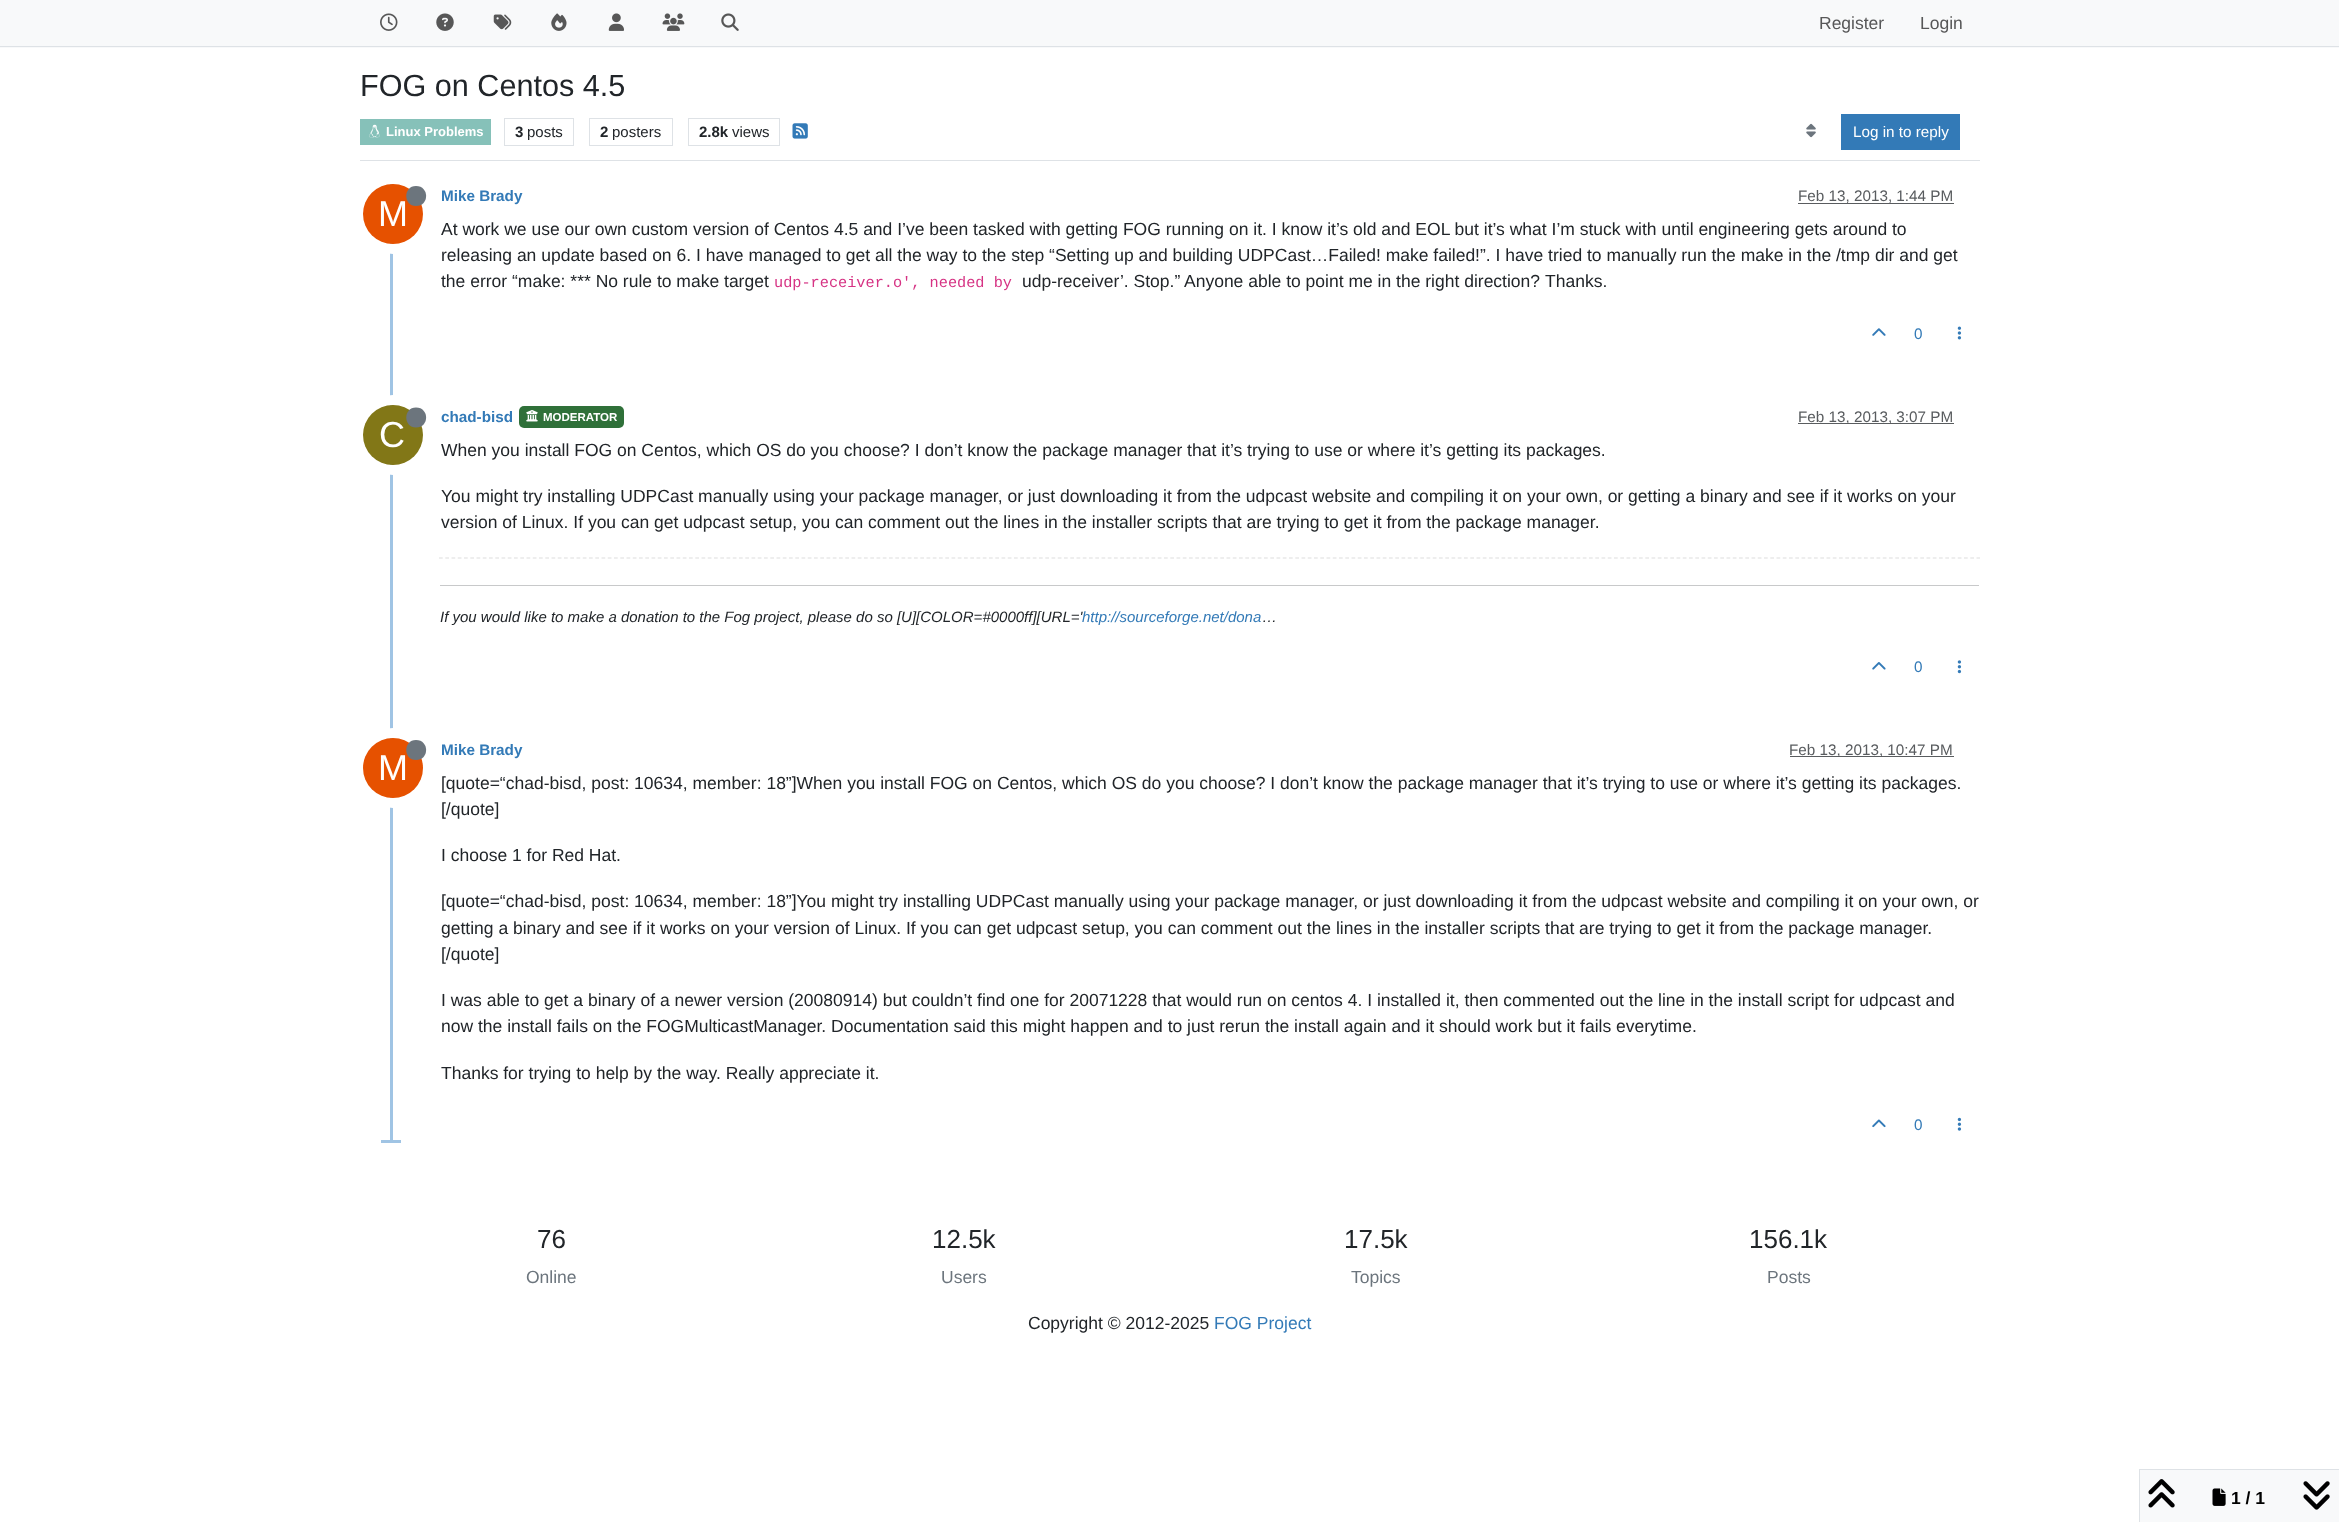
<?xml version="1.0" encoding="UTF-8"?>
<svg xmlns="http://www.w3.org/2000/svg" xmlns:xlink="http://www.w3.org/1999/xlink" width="2339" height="1522">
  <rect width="100%" height="100%" fill="#ffffff" />
  <rect width="2339" height="48" fill="#f8f9fa" />
  <rect y="46" width="2339" height="1" fill="#dee2e6" />
  <image x="380" y="13" width="18" height="18" xlink:href="image1.png" />
  <image x="436" y="13" width="18" height="18" xlink:href="image2.png" />
  <image x="493" y="14" width="19" height="16" xlink:href="image3.png" />
  <image x="551" y="13" width="16" height="18" xlink:href="image4.png" />
  <image x="608" y="13" width="16" height="18" xlink:href="image5.png" />
  <image x="662" y="13" width="23" height="18" xlink:href="image6.png" />
  <image x="721" y="13" width="18" height="18" xlink:href="image7.png" />
  <rect x="360" y="160" width="1620" height="1" fill="#dee2e6" />
  <rect x="360" y="119" width="131" height="26" fill="#86c1b9" />
  <image x="369" y="124" width="11" height="14" xlink:href="image8.png" />
  <rect x="504.5" y="118.5" width="69" height="27" fill="none" stroke="#dee2e6" />
  <rect x="589.5" y="118.5" width="83" height="27" fill="none" stroke="#dee2e6" />
  <rect x="688.5" y="118.5" width="91" height="27" fill="none" stroke="#dee2e6" />
  <image x="792" y="123" width="16" height="16" xlink:href="image9.png" />
  <image x="1806" y="123" width="10" height="15" xlink:href="image10.png" />
  <rect x="1841" y="114" width="119" height="36" fill="#337ab7" />
  <rect x="390" y="181" width="3" height="962" fill="#a0c4e4" />
  <rect x="1798" y="203" width="156" height="1" fill="#595c5f" />
  <circle cx="393" cy="214" r="35" fill="none" stroke="#ffffff" stroke-width="10" />
  <circle cx="393" cy="214" r="30" fill="#e65100" />
  <path d="M 416 206 c 13.5 0 13.5 -20 0 -20 c -13 0 -13 20 0 20 z" fill="#6c757d" />
  <image x="1872" y="328" width="14" height="8" xlink:href="image11.png" />
  <image x="1957" y="326" width="5" height="14" xlink:href="image12.png" />
  <rect x="519" y="406" width="105" height="22" rx="5" fill="#2f7039" />
  <image x="526" y="410" width="12" height="12" xlink:href="image13.png" />
  <rect x="1798" y="423" width="156" height="1" fill="#595c5f" />
  <circle cx="393" cy="435" r="35" fill="none" stroke="#ffffff" stroke-width="10" />
  <circle cx="393" cy="435" r="30" fill="#827717" />
  <path d="M 416 427.5 c 13.5 0 13.5 -20 0 -20 c -13 0 -13 20 0 20 z" fill="#6c757d" />
  <path d="M 439 558 h 1541" fill="none" stroke="#dedede" stroke-width="1.2" stroke-dasharray="3.75 2.5" />
  <rect x="440" y="585" width="1539" height="1" fill="#c8c9ca" />
  <image x="1872" y="662" width="14" height="8" xlink:href="image14.png" />
  <image x="1957" y="660" width="5" height="14" xlink:href="image15.png" />
  <rect x="1790" y="756" width="164" height="1" fill="#595c5f" />
  <circle cx="393" cy="768" r="35" fill="none" stroke="#ffffff" stroke-width="10" />
  <circle cx="393" cy="768" r="30" fill="#e65100" />
  <path d="M 416 760 c 13.5 0 13.5 -20 0 -20 c -13 0 -13 20 0 20 z" fill="#6c757d" />
  <image x="1872" y="1119" width="14" height="9" xlink:href="image16.png" />
  <image x="1957" y="1117" width="5" height="14" xlink:href="image17.png" />
  <rect x="381" y="1140" width="20" height="3" fill="#a0c4e4" />
  <rect x="2139.5" y="1469.5" width="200" height="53" fill="#f8f9fa" stroke="#dee2e6" />
  <image x="2148" y="1479" width="27" height="29" xlink:href="image18.png" />
  <image x="2212" y="1488" width="14" height="18" xlink:href="image19.png" />
  <image x="2303" y="1481" width="27" height="29" xlink:href="image20.png" />
  <text x="1819" y="29" style="font-family: Liberation Sans; font-size: 17.5px; fill: #575758">Register</text>
  <text x="1920" y="29" style="font-family: Liberation Sans; font-size: 17.5px; fill: #575758">Login</text>
  <text x="360" y="96" style="font-family: Liberation Sans; font-size: 30.6px; fill: #212529">FOG on Centos 4.5</text>
  <text x="386" y="136" style="font-family: Liberation Sans; font-size: 13px; font-weight: bold; fill: #ffffff">Linux Problems</text>
  <text x="515" y="137" style="font-family: Liberation Sans; font-size: 15px; font-weight: bold; fill: #212529">3</text>
  <text x="527" y="137" style="font-family: Liberation Sans; font-size: 15px; fill: #212529">posts</text>
  <text x="600" y="137" style="font-family: Liberation Sans; font-size: 15px; font-weight: bold; fill: #212529">2</text>
  <text x="612" y="137" style="font-family: Liberation Sans; font-size: 15px; fill: #212529">posters</text>
  <text x="699" y="137" style="font-family: Liberation Sans; font-size: 15px; font-weight: bold; fill: #212529">2.8k</text>
  <text x="732" y="137" style="font-family: Liberation Sans; font-size: 15px; fill: #212529">views</text>
  <text x="1853" y="137" style="font-family: Liberation Sans; font-size: 15.25px; fill: #ffffff">Log in to reply</text>
  <text x="441" y="201" style="font-family: Liberation Sans; font-size: 15.25px; font-weight: bold; fill: #337ab7">Mike Brady</text>
  <text x="1798" y="201" style="font-family: Liberation Sans; font-size: 15.25px; fill: #595c5f">Feb 13, 2013, 1:44 PM</text>
  <text x="378" y="226" style="font-family: Liberation Sans; font-size: 36px; fill: #ffffff">M</text>
  <text x="441" y="235" style="font-family: Liberation Sans; font-size: 17.5px; fill: #212529">At work we use our own custom version of Centos 4.5 and I’ve been tasked with getting FOG running on it. I know it’s old and EOL but it’s what I’m stuck with until engineering gets around to</text>
  <text x="441" y="261" style="font-family: Liberation Sans; font-size: 17.5px; fill: #212529">releasing an update based on 6. I have managed to get all the way to the step “Setting up and building UDPCast…Failed! make failed!”. I have tried to manually run the make in the /tmp dir and get</text>
  <text x="441" y="287" style="font-family: Liberation Sans; font-size: 17.5px; fill: #212529">the error “make: *** No rule to make target</text>
  <text x="774" y="287" style="font-family: Liberation Mono; font-size: 15.25px; fill: #d63384">udp-receiver.o', needed by</text>
  <text x="1022" y="287" style="font-family: Liberation Sans; font-size: 17.5px; fill: #212529">udp-receiver’. Stop.”</text>
  <text x="1184" y="287" style="font-family: Liberation Sans; font-size: 17.5px; fill: #212529">Anyone able to point me in the right direction?</text>
  <text x="1545" y="287" style="font-family: Liberation Sans; font-size: 17.5px; fill: #212529">Thanks.</text>
  <text x="1914" y="339" style="font-family: Liberation Sans; font-size: 15.25px; fill: #337ab7">0</text>
  <text x="441" y="422" style="font-family: Liberation Sans; font-size: 15.25px; font-weight: bold; fill: #337ab7">chad-bisd</text>
  <text x="543" y="421" style="font-family: Liberation Sans; font-size: 11.5px; font-weight: bold; fill: #ffffff">MODERATOR</text>
  <text x="1798" y="422" style="font-family: Liberation Sans; font-size: 15.25px; fill: #595c5f">Feb 13, 2013, 3:07 PM</text>
  <text x="379" y="447" style="font-family: Liberation Sans; font-size: 36px; fill: #ffffff">C</text>
  <text x="441" y="456" style="font-family: Liberation Sans; font-size: 17.5px; fill: #212529">When you install FOG on Centos, which OS do you choose? I don’t know the package manager that it’s trying to use or where it’s getting its packages.</text>
  <text x="441" y="502" style="font-family: Liberation Sans; font-size: 17.5px; fill: #212529">You might try installing UDPCast manually using your package manager, or just downloading it from the udpcast website and compiling it on your own, or getting a binary and see if it works on your</text>
  <text x="441" y="528" style="font-family: Liberation Sans; font-size: 17.5px; fill: #212529">version of Linux. If you can get udpcast setup, you can comment out the lines in the installer scripts that are trying to get it from the package manager.</text>
  <text x="440" y="622" style="font-family: Liberation Sans; font-size: 15px; font-style: italic; fill: #212529">If you would like to make a donation to the Fog project, please do so [U][COLOR=#0000ff][URL='</text>
  <text x="1082" y="622" style="font-family: Liberation Sans; font-size: 15px; font-style: italic; fill: #337ab7">http://sourceforge.net/dona</text>
  <text x="1262" y="622" style="font-family: Liberation Sans; font-size: 15px; font-style: italic; fill: #212529">…</text>
  <text x="1914" y="672" style="font-family: Liberation Sans; font-size: 15.25px; fill: #337ab7">0</text>
  <text x="441" y="755" style="font-family: Liberation Sans; font-size: 15.25px; font-weight: bold; fill: #337ab7">Mike Brady</text>
  <text x="1789" y="755" style="font-family: Liberation Sans; font-size: 15.25px; fill: #595c5f">Feb 13, 2013, 10:47 PM</text>
  <text x="378" y="780" style="font-family: Liberation Sans; font-size: 36px; fill: #ffffff">M</text>
  <text x="441" y="789" style="font-family: Liberation Sans; font-size: 17.5px; fill: #212529">[quote=“chad-bisd, post: 10634, member: 18”]When you install FOG on Centos, which OS do you choose? I don’t know the package manager that it’s trying to use or where it’s getting its packages.</text>
  <text x="441" y="815" style="font-family: Liberation Sans; font-size: 17.5px; fill: #212529">[/quote]</text>
  <text x="441" y="861" style="font-family: Liberation Sans; font-size: 17.5px; fill: #212529">I choose 1 for Red Hat.</text>
  <text x="441" y="907" style="font-family: Liberation Sans; font-size: 17.5px; fill: #212529">[quote=“chad-bisd, post: 10634, member: 18”]You might try installing UDPCast manually using your package manager, or just downloading it from the udpcast website and compiling it on your own, or</text>
  <text x="441" y="934" style="font-family: Liberation Sans; font-size: 17.5px; fill: #212529">getting a binary and see if it works on your version of Linux. If you can get udpcast setup, you can comment out the lines in the installer scripts that are trying to get it from the package manager.</text>
  <text x="441" y="960" style="font-family: Liberation Sans; font-size: 17.5px; fill: #212529">[/quote]</text>
  <text x="441" y="1006" style="font-family: Liberation Sans; font-size: 17.5px; fill: #212529">I was able to get a binary of a newer version (20080914) but couldn’t find one for 20071228 that would run on centos 4. I installed it, then commented out the line in the install script for udpcast and</text>
  <text x="441" y="1032" style="font-family: Liberation Sans; font-size: 17.5px; fill: #212529">now the install fails on the FOGMulticastManager. Documentation said this might happen and to just rerun the install again and it should work but it fails everytime.</text>
  <text x="441" y="1079" style="font-family: Liberation Sans; font-size: 17.5px; fill: #212529">Thanks for trying to help by the way. Really appreciate it.</text>
  <text x="1914" y="1130" style="font-family: Liberation Sans; font-size: 15.25px; fill: #337ab7">0</text>
  <text x="2231" y="1504" style="font-family: Liberation Sans; font-size: 17.5px; font-weight: bold; fill: #000000">1 / 1</text>
  <text x="537" y="1248" style="font-family: Liberation Sans; font-size: 26px; fill: #212529">76</text>
  <text x="526" y="1283" style="font-family: Liberation Sans; font-size: 17.5px; fill: #6c757d">Online</text>
  <text x="932" y="1248" style="font-family: Liberation Sans; font-size: 26px; fill: #212529">12.5k</text>
  <text x="941" y="1283" style="font-family: Liberation Sans; font-size: 17.5px; fill: #6c757d">Users</text>
  <text x="1344" y="1248" style="font-family: Liberation Sans; font-size: 26px; fill: #212529">17.5k</text>
  <text x="1351" y="1283" style="font-family: Liberation Sans; font-size: 17.5px; fill: #6c757d">Topics</text>
  <text x="1749" y="1248" style="font-family: Liberation Sans; font-size: 26px; fill: #212529">156.1k</text>
  <text x="1767" y="1283" style="font-family: Liberation Sans; font-size: 17.5px; fill: #6c757d">Posts</text>
  <text x="1028" y="1329" style="font-family: Liberation Sans; font-size: 17.5px; fill: #212529">Copyright © 2012-2025</text>
  <text x="1214" y="1329" style="font-family: Liberation Sans; font-size: 17.5px; fill: #337ab7">FOG Project</text>
</svg>
